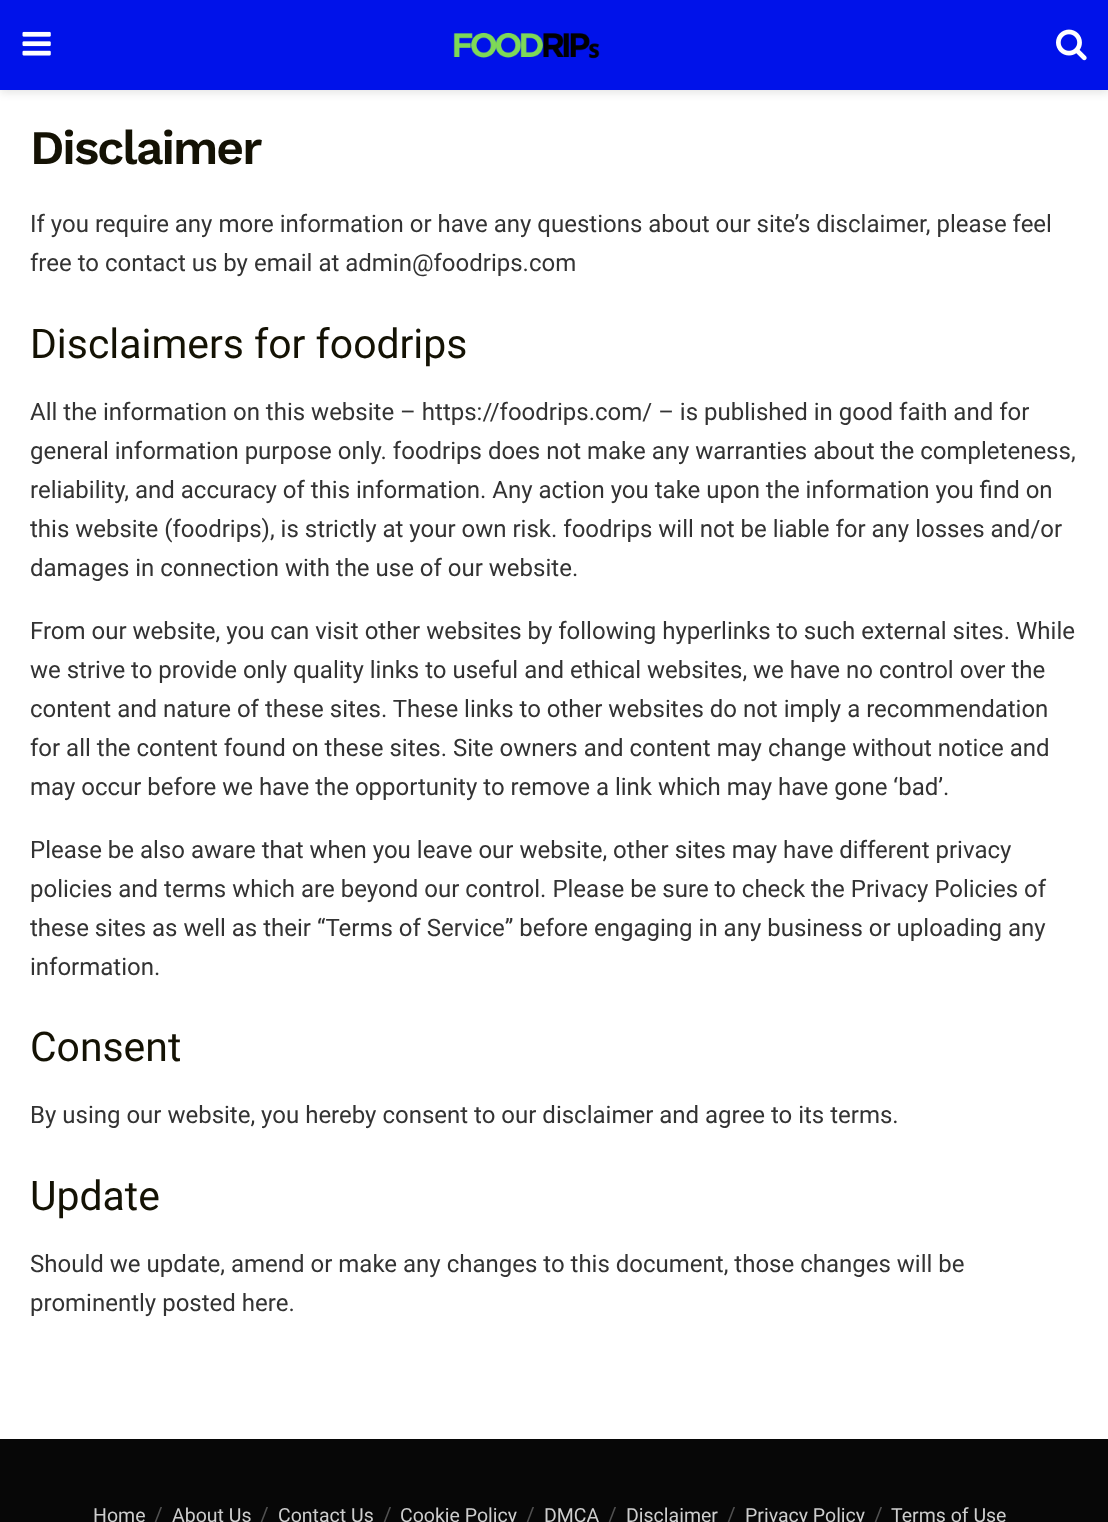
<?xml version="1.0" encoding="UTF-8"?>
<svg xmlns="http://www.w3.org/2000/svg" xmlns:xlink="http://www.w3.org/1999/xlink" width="1108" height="1522">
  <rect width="100%" height="100%" fill="#ffffff" />
  <rect y="3" width="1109" height="90" fill="#000000" fill-opacity="0.1" filter="blur(4.5px)" />
  <rect width="1108" height="90" fill="#0012ea" />
  <image x="22" y="31" width="29" height="25" xlink:href="image1.png" />
  <image x="453" y="32" width="147" height="27" xlink:href="image2.png" />
  <image x="1056" y="29" width="31" height="32" xlink:href="image3.png" />
  <rect y="1439" width="1108" height="83" fill="#070707" />
  <text x="30" y="164" style="font-family: Work Sans; font-size: 48px; font-weight: 600; letter-spacing: -2px; fill: #141204">Disclaimer</text>
  <text x="30" y="232" style="font-family: Roboto; font-size: 24px; fill: #333333">If you require any more information or have any questions about our site’s disclaimer, please feel</text>
  <text x="30" y="271" style="font-family: Roboto; font-size: 24px; fill: #333333">free to contact us by email at admin@foodrips.com</text>
  <text x="30" y="358" style="font-family: Roboto; font-size: 40.9px; fill: #141204">Disclaimers for foodrips</text>
  <text x="30" y="420" style="font-family: Roboto; font-size: 24px; fill: #333333">All the information on this website – https://foodrips.com/ – is published in good faith and for</text>
  <text x="30" y="459" style="font-family: Roboto; font-size: 24px; fill: #333333">general information purpose only. foodrips does not make any warranties about the completeness,</text>
  <text x="30" y="498" style="font-family: Roboto; font-size: 24px; fill: #333333">reliability, and accuracy of this information. Any action you take upon the information you find on</text>
  <text x="30" y="537" style="font-family: Roboto; font-size: 24px; fill: #333333">this website (foodrips), is strictly at your own risk. foodrips will not be liable for any losses and/or</text>
  <text x="30" y="576" style="font-family: Roboto; font-size: 24px; fill: #333333">damages in connection with the use of our website.</text>
  <text x="30" y="639" style="font-family: Roboto; font-size: 24px; fill: #333333">From our website, you can visit other websites by following hyperlinks to such external sites. While</text>
  <text x="30" y="678" style="font-family: Roboto; font-size: 24px; fill: #333333">we strive to provide only quality links to useful and ethical websites, we have no control over the</text>
  <text x="30" y="717" style="font-family: Roboto; font-size: 24px; fill: #333333">content and nature of these sites. These links to other websites do not imply a recommendation</text>
  <text x="30" y="756" style="font-family: Roboto; font-size: 24px; fill: #333333">for all the content found on these sites. Site owners and content may change without notice and</text>
  <text x="30" y="795" style="font-family: Roboto; font-size: 24px; fill: #333333">may occur before we have the opportunity to remove a link which may have gone ‘bad’.</text>
  <text x="30" y="858" style="font-family: Roboto; font-size: 24px; fill: #333333">Please be also aware that when you leave our website, other sites may have different privacy</text>
  <text x="30" y="897" style="font-family: Roboto; font-size: 24px; fill: #333333">policies and terms which are beyond our control. Please be sure to check the Privacy Policies of</text>
  <text x="30" y="936" style="font-family: Roboto; font-size: 24px; fill: #333333">these sites as well as their “Terms of Service” before engaging in any business or uploading any</text>
  <text x="30" y="975" style="font-family: Roboto; font-size: 24px; fill: #333333">information.</text>
  <text x="30" y="1061" style="font-family: Roboto; font-size: 40.9px; fill: #141204">Consent</text>
  <text x="30" y="1123" style="font-family: Roboto; font-size: 24px; fill: #333333">By using our website, you hereby consent to our disclaimer and agree to its terms.</text>
  <text x="30" y="1210" style="font-family: Roboto; font-size: 40.9px; fill: #141204">Update</text>
  <text x="30" y="1272" style="font-family: Roboto; font-size: 24px; fill: #333333">Should we update, amend or make any changes to this document, those changes will be</text>
  <text x="30" y="1311" style="font-family: Roboto; font-size: 24px; fill: #333333">prominently posted here.</text>
  <text x="93" y="1522" style="font-family: Roboto; font-size: 19.5px; fill: #cdcdcd">Home</text>
  <text x="154" y="1522" style="font-family: Roboto; font-size: 21px; fill: #515151">/</text>
  <text x="172" y="1522" style="font-family: Roboto; font-size: 19.5px; fill: #cdcdcd">About Us</text>
  <text x="260" y="1522" style="font-family: Roboto; font-size: 21px; fill: #515151">/</text>
  <text x="278" y="1522" style="font-family: Roboto; font-size: 19.5px; fill: #cdcdcd">Contact Us</text>
  <text x="383" y="1522" style="font-family: Roboto; font-size: 21px; fill: #515151">/</text>
  <text x="400" y="1522" style="font-family: Roboto; font-size: 19.5px; fill: #cdcdcd">Cookie Policy</text>
  <text x="526" y="1522" style="font-family: Roboto; font-size: 21px; fill: #515151">/</text>
  <text x="544" y="1522" style="font-family: Roboto; font-size: 19.5px; fill: #cdcdcd">DMCA</text>
  <text x="608" y="1522" style="font-family: Roboto; font-size: 21px; fill: #515151">/</text>
  <text x="626" y="1522" style="font-family: Roboto; font-size: 19.5px; fill: #cdcdcd">Disclaimer</text>
  <text x="727" y="1522" style="font-family: Roboto; font-size: 21px; fill: #515151">/</text>
  <text x="745" y="1522" style="font-family: Roboto; font-size: 19.5px; fill: #cdcdcd">Privacy Policy</text>
  <text x="874" y="1522" style="font-family: Roboto; font-size: 21px; fill: #515151">/</text>
  <text x="891" y="1522" style="font-family: Roboto; font-size: 19.5px; fill: #cdcdcd">Terms of Use</text>
</svg>
